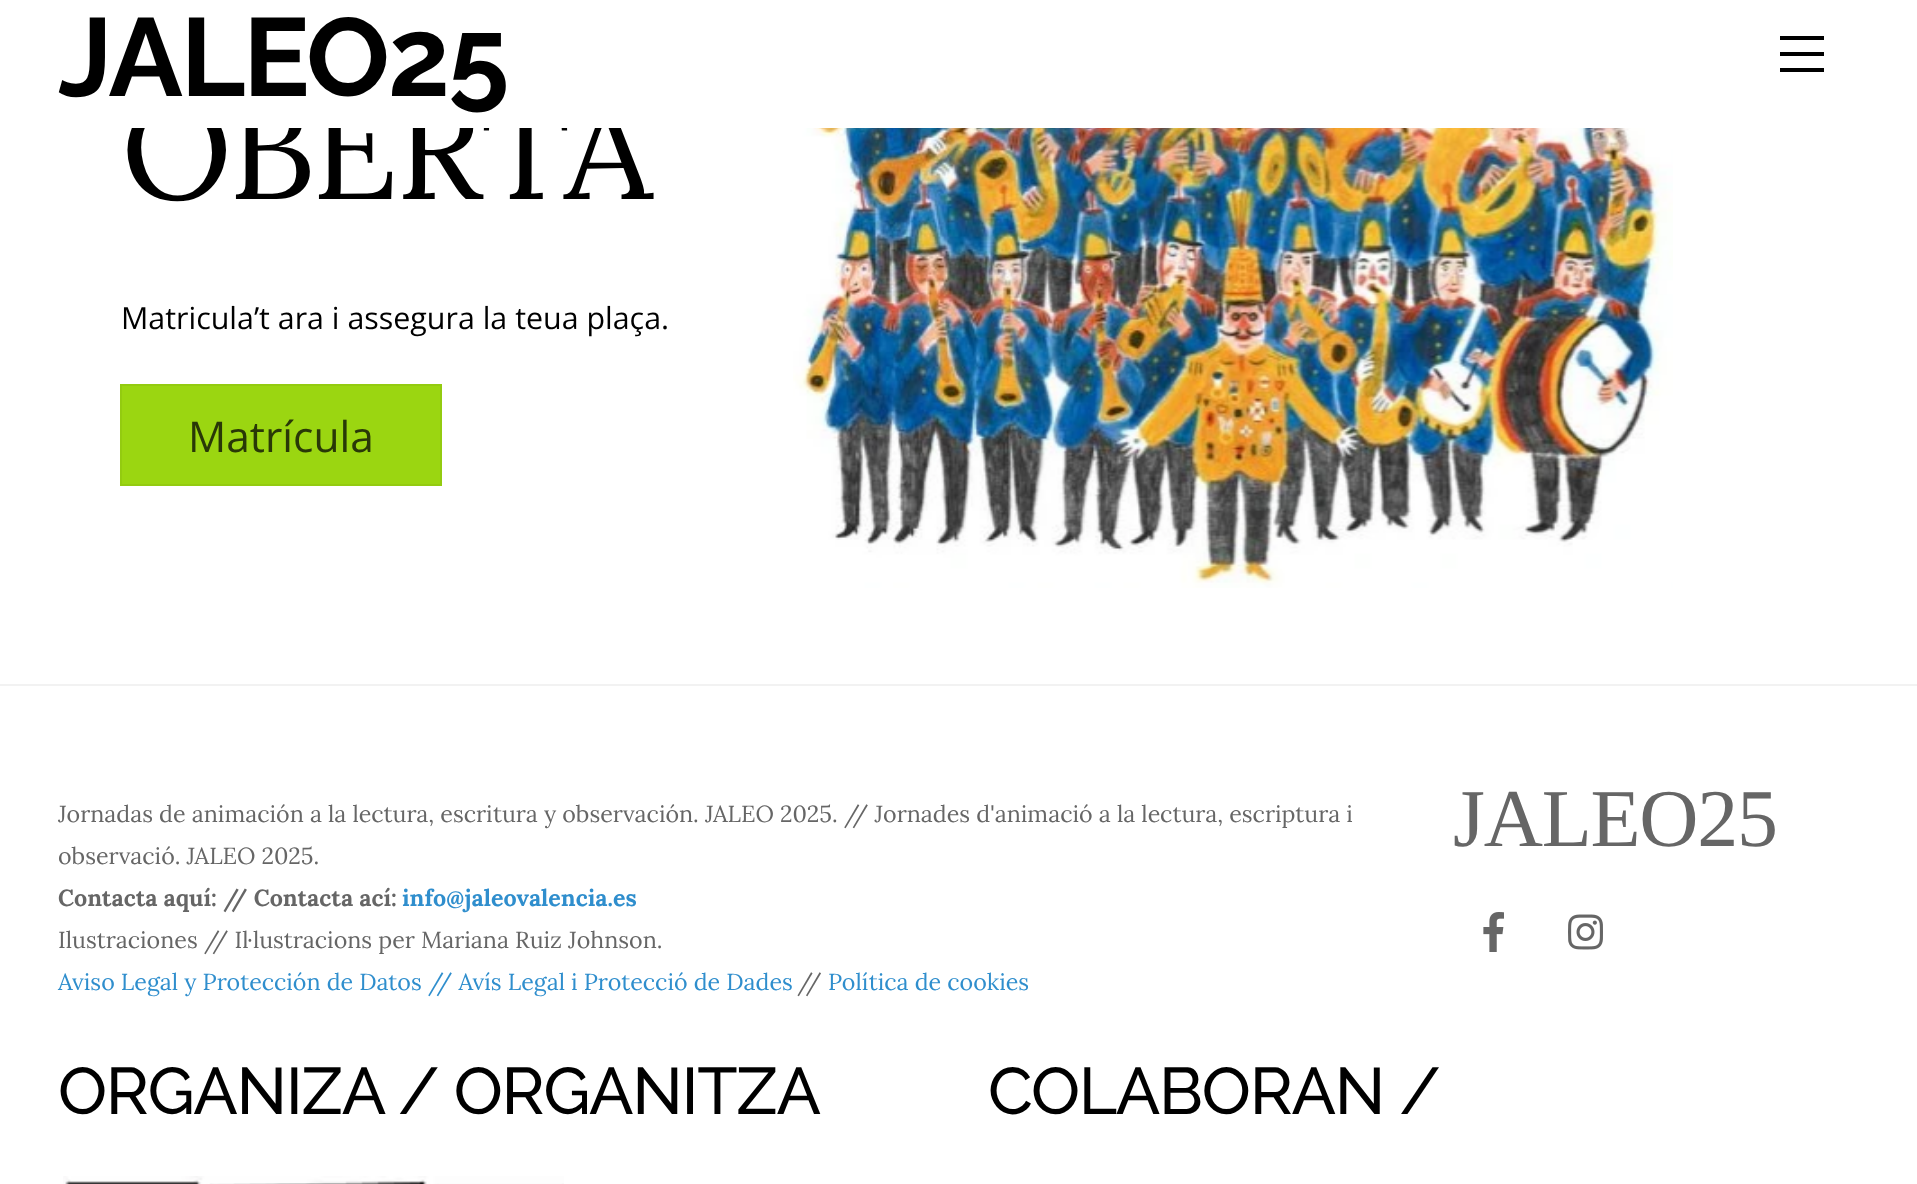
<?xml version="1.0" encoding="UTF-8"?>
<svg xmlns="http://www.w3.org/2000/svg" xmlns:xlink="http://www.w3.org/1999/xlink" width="1917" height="1184">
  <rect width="100%" height="100%" fill="#ffffff" />
  <rect x="1780" y="68" width="44" height="4" fill="#000000" />
  <rect x="1780" y="36" width="44" height="4" fill="#000000" />
  <rect x="1780" y="52" width="44" height="4" fill="#000000" />
  <rect x="121" y="385" width="320" height="100" fill="#9bd611" stroke="#93cb10" stroke-width="2" />
  <image x="793" y="128" width="880" height="460" xlink:href="image1.png" />
  <rect y="684" width="1917" height="2" fill="#f2f2f2" />
  <image x="1483" y="912" width="21" height="40" xlink:href="image2.png" />
  <image x="1568" y="914" width="35" height="36" xlink:href="image3.png" />
  <image x="63" y="1176" width="501" height="8" xlink:href="image4.png" />
  <text x="121" y="199" style="font-family: Lora; font-size: 140px; letter-spacing: -2.75px; fill: #000000">OBERTA</text>
  <rect x="131" y="98" width="490" height="30" fill="#ffffff" />
  <text x="58" y="96" style="font-family: Raleway; font-size: 110.5px; font-weight: bold; letter-spacing: -2px; fill: #000000">JALEO25</text>
  <text x="121" y="329" style="font-family: Open Sans; font-size: 30.4px; fill: #000000">Matricula’t ara i assegura la teua plaça.</text>
  <text x="188" y="452" style="font-family: Open Sans; font-size: 42.5px; fill: #293807">Matrícula</text>
  <text x="58" y="822" style="font-family: Lora; font-size: 23.25px; fill: #666666">Jornadas de animación a la lectura, escritura y observación. JALEO 2025. // Jornades d'animació a la lectura, escriptura i</text>
  <text x="58" y="864" style="font-family: Lora; font-size: 23.25px; fill: #666666">observació. JALEO 2025.</text>
  <text x="58" y="906" style="font-family: Lora; font-size: 23.25px; font-weight: bold; fill: #666666">Contacta aquí: // Contacta ací:</text>
  <text x="402" y="906" style="font-family: Lora; font-size: 23.25px; font-weight: bold; fill: #2f8ecd">info@jaleovalencia.es</text>
  <text x="58" y="948" style="font-family: Lora; font-size: 23.25px; fill: #666666">Ilustraciones // Il·lustracions per Mariana Ruiz Johnson.</text>
  <text x="58" y="990" style="font-family: Lora; font-size: 23.25px; fill: #2f8ecd">Aviso Legal y Protección de Datos // Avís Legal i Protecció de Dades</text>
  <text x="797" y="990" style="font-family: Lora; font-size: 23.25px; fill: #666666">//</text>
  <text x="828" y="990" style="font-family: Lora; font-size: 23.25px; fill: #2f8ecd">Política de cookies</text>
  <text x="1453" y="846" style="font-family: Liberation Serif; font-size: 82px; letter-spacing: -1.25px; fill: #666666">JALEO25</text>
  <text x="58" y="1114" style="font-family: Raleway; font-size: 65.7px; font-weight: 500; letter-spacing: -1.3px; fill: #000000">ORGANIZA / ORGANITZA</text>
  <text x="988" y="1114" style="font-family: Raleway; font-size: 65.7px; font-weight: 500; letter-spacing: -1.3px; fill: #000000">COLABORAN /</text>
</svg>
